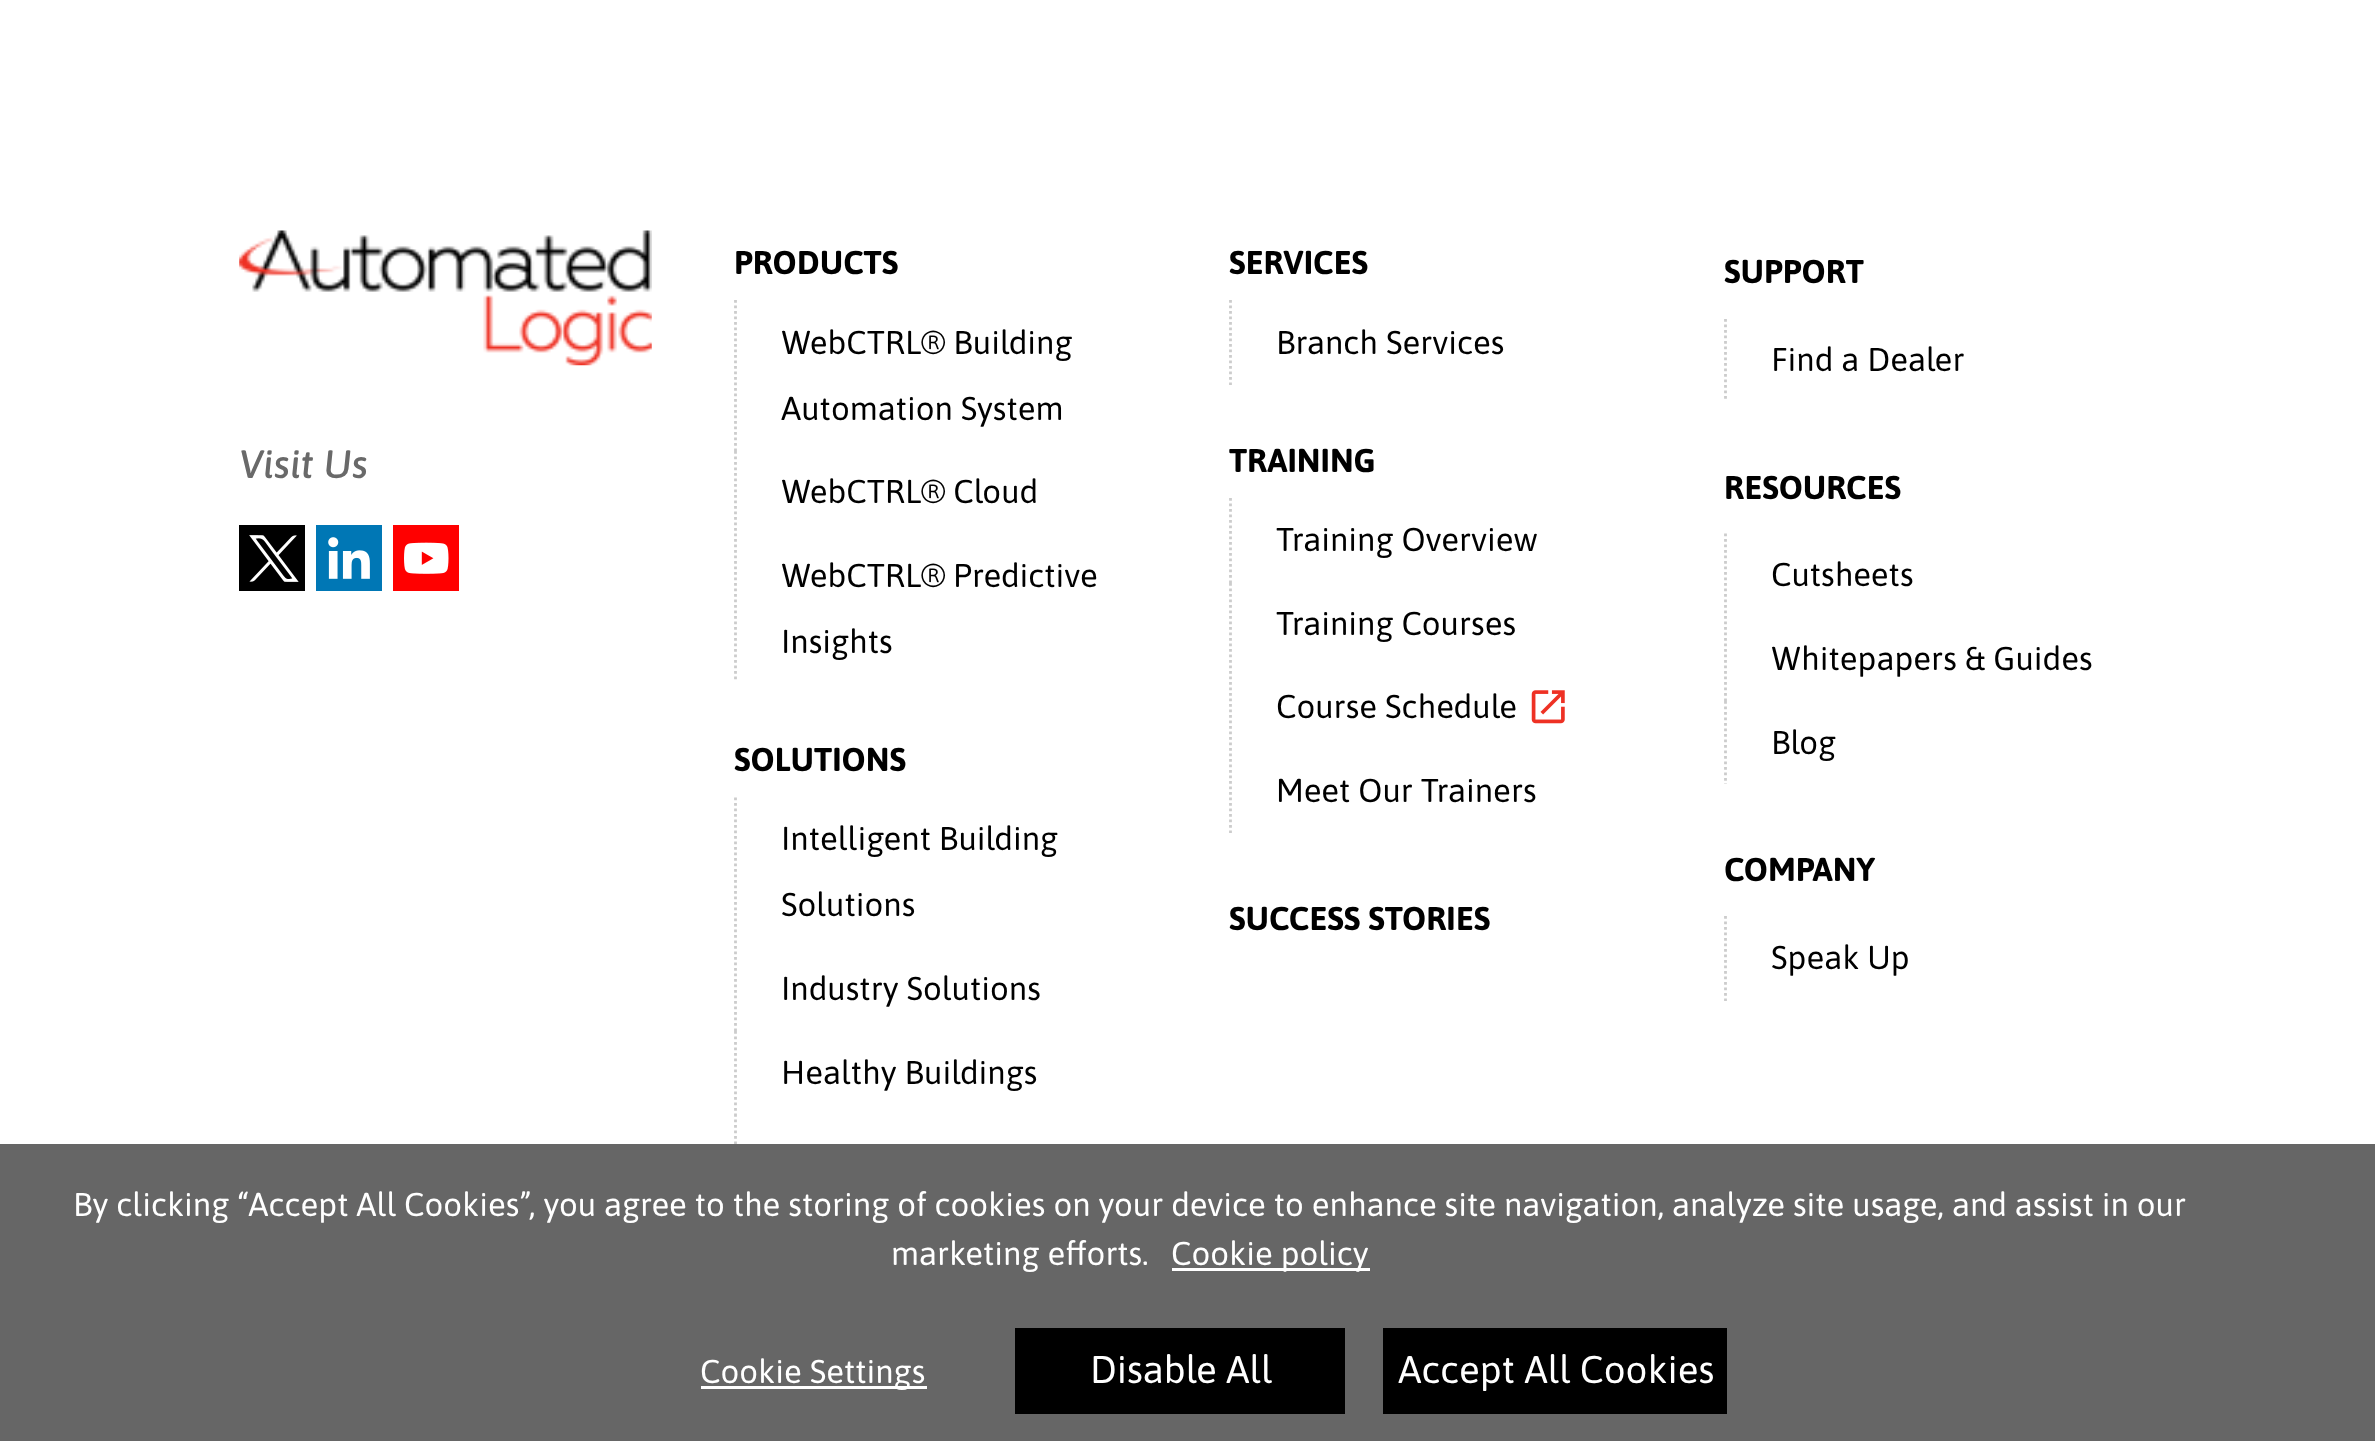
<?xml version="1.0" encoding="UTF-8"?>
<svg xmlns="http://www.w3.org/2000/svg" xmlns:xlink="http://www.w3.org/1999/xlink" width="2375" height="1441">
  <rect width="100%" height="100%" fill="#ffffff" />
  <image x="239" y="230" width="413" height="136" xlink:href="image1.png" />
  <rect x="239" y="525" width="66" height="66" fill="#000000" />
  <rect x="316" y="525" width="66" height="66" fill="#0077b5" />
  <image x="393" y="525" width="66" height="66" xlink:href="image2.png" />
  <image x="249" y="535" width="50" height="47" xlink:href="image3.png" />
  <image x="328" y="537" width="42" height="42" xlink:href="image4.png" />
  <path d="M 735.5 300 v 151" fill="none" stroke="#cccccc" stroke-width="2.8" stroke-dasharray="2.75 2.75" />
  <path d="M 735.5 451 v 82.5" fill="none" stroke="#cccccc" stroke-width="2.8" stroke-dasharray="2.75 2.75" />
  <path d="M 735.5 533.5 v 148.5" fill="none" stroke="#cccccc" stroke-width="2.8" stroke-dasharray="2.75 2.75" />
  <path d="M 735.5 797.5 v 148.5" fill="none" stroke="#cccccc" stroke-width="2.8" stroke-dasharray="2.75 2.75" />
  <path d="M 735.5 946 v 85" fill="none" stroke="#cccccc" stroke-width="2.8" stroke-dasharray="2.75 2.75" />
  <path d="M 735.5 1031 v 83" fill="none" stroke="#cccccc" stroke-width="2.8" stroke-dasharray="2.75 2.75" />
  <path d="M 735.5 1114 v 85" fill="none" stroke="#cccccc" stroke-width="2.8" stroke-dasharray="2.75 2.75" />
  <path d="M 1230.5 300 v 85" fill="none" stroke="#cccccc" stroke-width="2.8" stroke-dasharray="2.75 2.75" />
  <path d="M 1230.5 498 v 85" fill="none" stroke="#cccccc" stroke-width="2.8" stroke-dasharray="2.75 2.75" />
  <path d="M 1230.5 583 v 82.5" fill="none" stroke="#cccccc" stroke-width="2.8" stroke-dasharray="2.75 2.75" />
  <path d="M 1230.5 665.5 v 82.5" fill="none" stroke="#cccccc" stroke-width="2.8" stroke-dasharray="2.75 2.75" />
  <image x="1531" y="690" width="34" height="34" xlink:href="image5.png" />
  <path d="M 1230.5 748 v 85" fill="none" stroke="#cccccc" stroke-width="2.8" stroke-dasharray="2.75 2.75" />
  <path d="M 1725.5 319 v 82.5" fill="none" stroke="#cccccc" stroke-width="2.8" stroke-dasharray="2.75 2.75" />
  <path d="M 1725.5 533.5 v 82.5" fill="none" stroke="#cccccc" stroke-width="2.8" stroke-dasharray="2.75 2.75" />
  <path d="M 1725.5 616 v 85" fill="none" stroke="#cccccc" stroke-width="2.8" stroke-dasharray="2.75 2.75" />
  <path d="M 1725.5 701 v 83" fill="none" stroke="#cccccc" stroke-width="2.8" stroke-dasharray="2.75 2.75" />
  <path d="M 1725.5 916 v 85" fill="none" stroke="#cccccc" stroke-width="2.8" stroke-dasharray="2.75 2.75" />
  <rect y="1144" width="2375" height="297" fill="#666666" />
  <rect x="1172" y="1268" width="198" height="3" fill="#ffffff" />
  <rect x="701" y="1386" width="226" height="3" fill="#ffffff" />
  <rect x="1015" y="1328" width="330" height="86" fill="#000000" />
  <rect x="1383" y="1328" width="344" height="86" fill="#000000" />
  <text x="239" y="478" style="font-family: Asap; font-size: 39.5px; font-weight: 500; font-style: italic; fill: #696969">Visit Us</text>
  <text x="734" y="274" style="font-family: Asap; font-size: 33px; font-weight: bold; fill: #000000">PRODUCTS</text>
  <text x="781" y="354" style="font-family: Asap; font-size: 33px; fill: #000000">WebCTRL® Building</text>
  <text x="781" y="420" style="font-family: Asap; font-size: 33px; fill: #000000">Automation System</text>
  <text x="781" y="503" style="font-family: Asap; font-size: 33px; fill: #000000">WebCTRL® Cloud</text>
  <text x="781" y="587" style="font-family: Asap; font-size: 33px; fill: #000000">WebCTRL® Predictive</text>
  <text x="781" y="653" style="font-family: Asap; font-size: 33px; fill: #000000">Insights</text>
  <text x="734" y="771" style="font-family: Asap; font-size: 33px; font-weight: bold; fill: #000000">SOLUTIONS</text>
  <text x="781" y="850" style="font-family: Asap; font-size: 33px; fill: #000000">Intelligent Building</text>
  <text x="781" y="916" style="font-family: Asap; font-size: 33px; fill: #000000">Solutions</text>
  <text x="781" y="1000" style="font-family: Asap; font-size: 33px; fill: #000000">Industry Solutions</text>
  <text x="781" y="1084" style="font-family: Asap; font-size: 33px; fill: #000000">Healthy Buildings</text>
  <text x="1229" y="274" style="font-family: Asap; font-size: 33px; font-weight: bold; fill: #000000">SERVICES</text>
  <text x="1276" y="354" style="font-family: Asap; font-size: 33px; fill: #000000">Branch Services</text>
  <text x="1229" y="472" style="font-family: Asap; font-size: 33px; font-weight: bold; fill: #000000">TRAINING</text>
  <text x="1276" y="551" style="font-family: Asap; font-size: 33px; fill: #000000">Training Overview</text>
  <text x="1276" y="635" style="font-family: Asap; font-size: 33px; fill: #000000">Training Courses</text>
  <text x="1276" y="718" style="font-family: Asap; font-size: 33px; fill: #000000">Course Schedule</text>
  <text x="1276" y="802" style="font-family: Asap; font-size: 33px; fill: #000000">Meet Our Trainers</text>
  <text x="1229" y="930" style="font-family: Asap; font-size: 33px; font-weight: bold; fill: #000000">SUCCESS STORIES</text>
  <text x="1724" y="283" style="font-family: Asap; font-size: 33px; font-weight: bold; fill: #000000">SUPPORT</text>
  <text x="1771" y="371" style="font-family: Asap; font-size: 33px; fill: #000000">Find a Dealer</text>
  <text x="1724" y="499" style="font-family: Asap; font-size: 33px; font-weight: bold; fill: #000000">RESOURCES</text>
  <text x="1771" y="586" style="font-family: Asap; font-size: 33px; fill: #000000">Cutsheets</text>
  <text x="1771" y="670" style="font-family: Asap; font-size: 33px; fill: #000000">Whitepapers &amp; Guides</text>
  <text x="1771" y="754" style="font-family: Asap; font-size: 33px; fill: #000000">Blog</text>
  <text x="1724" y="881" style="font-family: Asap; font-size: 33px; font-weight: bold; fill: #000000">COMPANY</text>
  <text x="1771" y="969" style="font-family: Asap; font-size: 33px; fill: #000000">Speak Up</text>
  <text x="73" y="1216" style="font-family: Asap; font-size: 33px; fill: #ffffff">By clicking “Accept All Cookies”, you agree to the storing of cookies on your device to enhance site navigation, analyze site usage, and assist in our</text>
  <text x="891" y="1265" style="font-family: Asap; font-size: 33px; fill: #ffffff">marketing efforts.</text>
  <text x="1171" y="1265" style="font-family: Asap; font-size: 33px; fill: #ffffff">Cookie policy</text>
  <text x="700" y="1383" style="font-family: Asap; font-size: 33px; fill: #ffffff">Cookie Settings</text>
  <text x="1090" y="1383" style="font-family: Asap; font-size: 38.5px; fill: #ffffff">Disable All</text>
  <text x="1398" y="1383" style="font-family: Asap; font-size: 38.5px; fill: #ffffff">Accept All Cookies</text>
</svg>
